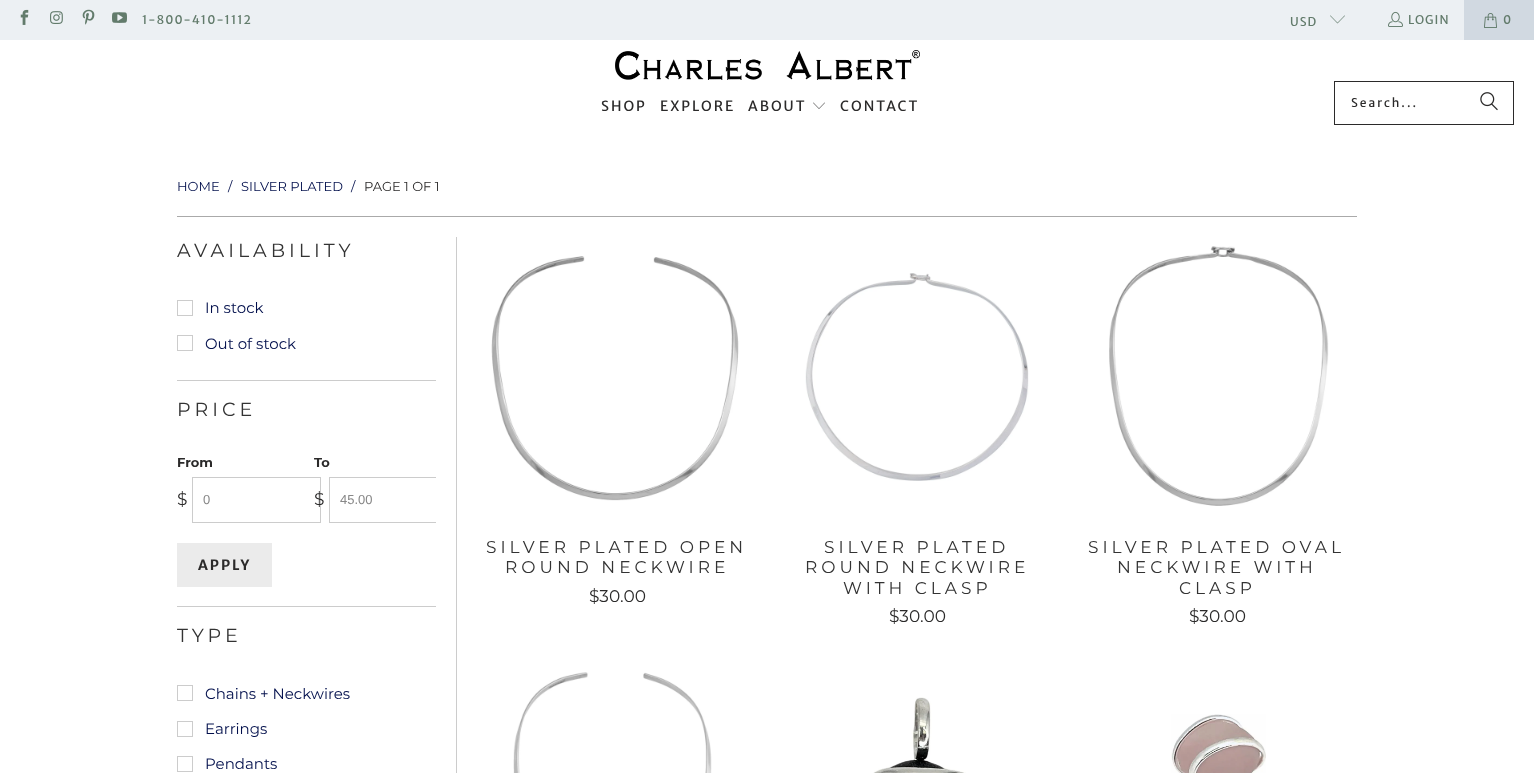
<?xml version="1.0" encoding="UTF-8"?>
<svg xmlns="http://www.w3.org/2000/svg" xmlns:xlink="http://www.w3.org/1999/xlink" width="1534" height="773">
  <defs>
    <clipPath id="clip1"><rect x="167" y="381" width="269" height="226" /></clipPath>
  </defs>
  <rect width="100%" height="100%" fill="#ffffff" />
  <rect width="1464" height="40" fill="#ecf0f3" />
  <image x="20" y="9" width="9" height="16" xlink:href="image1.png" />
  <image x="50" y="11" width="13" height="13" xlink:href="image2.png" />
  <image x="82" y="9" width="13" height="16" xlink:href="image3.png" />
  <image x="112" y="12" width="15" height="11" xlink:href="image4.png" />
  <image x="1330" y="15" width="15" height="9" xlink:href="image5.png" />
  <image x="1388" y="11" width="15" height="16" xlink:href="image6.png" />
  <rect x="1464" width="70" height="40" fill="#d1d9e1" />
  <image x="1484" y="13" width="13" height="15" xlink:href="image7.png" />
  <image x="615" y="50" width="305" height="30" xlink:href="image8.png" />
  <image x="813" y="102" width="12" height="7" xlink:href="image9.png" />
  <rect x="1334.5" y="81.5" width="179" height="43" fill="none" stroke="#2b2a2a" />
  <image x="1480" y="92" width="18" height="19" xlink:href="image10.png" />
  <rect x="177" y="216" width="1180" height="1" fill="#aaaaaa" />
  <rect x="456" y="237" width="1" height="536" fill="#cccccc" />
  <rect x="177.5" y="300.5" width="15" height="15" fill="none" stroke="#cccccc" />
  <rect x="177.5" y="335.5" width="15" height="15" fill="none" stroke="#cccccc" />
  <rect x="177" y="380" width="259" height="1" fill="#cccccc" />
  <rect x="192.5" y="477.5" width="128" height="45" fill="none" stroke="#cccccc" />
  <g clip-path="url(#clip1)">
    <rect x="329.5" y="477.5" width="128" height="45" fill="none" stroke="#cccccc" />
  </g>
  <rect x="177" y="543" width="95" height="44" fill="#ebebeb" />
  <rect x="177" y="606" width="259" height="1" fill="#cccccc" />
  <rect x="177.5" y="685.5" width="15" height="15" fill="none" stroke="#cccccc" />
  <rect x="177.5" y="721.5" width="15" height="15" fill="none" stroke="#cccccc" />
  <rect x="177.5" y="756.5" width="15" height="15" fill="none" stroke="#cccccc" />
  <image x="491" y="256" width="248" height="245" xlink:href="image11.png" />
  <image x="805" y="273" width="224" height="208" xlink:href="image12.png" />
  <image x="1109" y="246" width="220" height="260" xlink:href="image13.png" />
  <image x="513" y="672" width="199" height="101" xlink:href="image14.png" />
  <image x="873" y="697" width="93" height="76" xlink:href="image15.png" />
  <image x="1171" y="714" width="95" height="59" xlink:href="image16.png" />
  <text x="142" y="24" style="font-family: Merriweather Sans; font-size: 12px; letter-spacing: 1px; fill: #627b6b">1-800-410-1112</text>
  <text x="1290" y="26" style="font-family: Merriweather Sans; font-size: 12px; letter-spacing: 1px; fill: #627b6b">USD</text>
  <text x="1408" y="24" style="font-family: Merriweather Sans; font-size: 12px; letter-spacing: 1px; fill: #627b6b">LOGIN</text>
  <text x="1503" y="24" style="font-family: Merriweather Sans; font-size: 12px; letter-spacing: 1px; fill: #627b6b">0</text>
  <text x="601" y="111" style="font-family: Merriweather Sans; font-size: 14px; letter-spacing: 2px; fill: #2b2a2a">SHOP</text>
  <text x="660" y="111" style="font-family: Merriweather Sans; font-size: 14px; letter-spacing: 2px; fill: #2b2a2a">EXPLORE</text>
  <text x="748" y="111" style="font-family: Merriweather Sans; font-size: 14px; letter-spacing: 2px; fill: #2b2a2a">ABOUT</text>
  <text x="840" y="111" style="font-family: Merriweather Sans; font-size: 14px; letter-spacing: 2px; fill: #2b2a2a">CONTACT</text>
  <text x="1351" y="107" style="font-family: Merriweather Sans; font-size: 12px; letter-spacing: 2px; fill: #2b2a2a">Search...</text>
  <text x="177" y="191" style="font-family: Montserrat; font-size: 13px; fill: #020f4c">HOME</text>
  <text x="228" y="191" style="font-family: Montserrat; font-size: 13px; fill: #020f4c">/</text>
  <text x="241" y="191" style="font-family: Montserrat; font-size: 13px; fill: #020f4c">SILVER PLATED</text>
  <text x="351" y="191" style="font-family: Montserrat; font-size: 13px; fill: #020f4c">/</text>
  <text x="364" y="191" style="font-family: Montserrat; font-size: 13px; fill: #2b2a2a">PAGE 1 OF 1</text>
  <text x="177" y="257" style="font-family: Montserrat; font-size: 19px; letter-spacing: 4px; fill: #333333">AVAILABILITY</text>
  <text x="205" y="313" style="font-family: Montserrat; font-size: 15px; fill: #020f4c">In stock</text>
  <text x="205" y="349" style="font-family: Montserrat; font-size: 15px; fill: #020f4c">Out of stock</text>
  <text x="177" y="416" style="font-family: Montserrat; font-size: 19px; letter-spacing: 4px; fill: #333333">PRICE</text>
  <text x="177" y="467" style="font-family: Montserrat; font-size: 13px; font-weight: bold; fill: #2b2a2a">From</text>
  <text x="177" y="505" style="font-family: Montserrat; font-size: 17px; fill: #2b2a2a">$</text>
  <text x="203" y="504" style="font-family: Liberation Sans; font-size: 13px; fill: #888888">0</text>
  <text x="314" y="467" style="font-family: Montserrat; font-size: 13px; font-weight: bold; fill: #2b2a2a">To</text>
  <text x="314" y="505" style="font-family: Montserrat; font-size: 17px; fill: #2b2a2a">$</text>
  <text x="340" y="504" style="font-family: Liberation Sans; font-size: 13px; fill: #888888">45.00</text>
  <text x="198" y="570" style="font-family: Merriweather Sans; font-size: 14px; font-weight: bold; letter-spacing: 2px; fill: #2b2a2a">APPLY</text>
  <text x="177" y="642" style="font-family: Montserrat; font-size: 19px; letter-spacing: 4px; fill: #333333">TYPE</text>
  <text x="205" y="699" style="font-family: Montserrat; font-size: 15px; fill: #020f4c">Chains + Neckwires</text>
  <text x="205" y="734" style="font-family: Montserrat; font-size: 15px; fill: #020f4c">Earrings</text>
  <text x="205" y="769" style="font-family: Montserrat; font-size: 15px; fill: #020f4c">Pendants</text>
  <text x="486" y="553" style="font-family: Montserrat; font-size: 17px; letter-spacing: 4px; fill: #333333">SILVER PLATED OPEN</text>
  <text x="505" y="573" style="font-family: Montserrat; font-size: 17px; letter-spacing: 4px; fill: #333333">ROUND NECKWIRE</text>
  <text x="589" y="602" style="font-family: Montserrat; font-size: 17px; fill: #2b2a2a">$30.00</text>
  <text x="824" y="553" style="font-family: Montserrat; font-size: 17px; letter-spacing: 4px; fill: #333333">SILVER PLATED</text>
  <text x="805" y="573" style="font-family: Montserrat; font-size: 17px; letter-spacing: 4px; fill: #333333">ROUND NECKWIRE</text>
  <text x="843" y="594" style="font-family: Montserrat; font-size: 17px; letter-spacing: 4px; fill: #333333">WITH CLASP</text>
  <text x="889" y="622" style="font-family: Montserrat; font-size: 17px; fill: #2b2a2a">$30.00</text>
  <text x="1088" y="553" style="font-family: Montserrat; font-size: 17px; letter-spacing: 4px; fill: #333333">SILVER PLATED OVAL</text>
  <text x="1117" y="573" style="font-family: Montserrat; font-size: 17px; letter-spacing: 4px; fill: #333333">NECKWIRE WITH</text>
  <text x="1179" y="594" style="font-family: Montserrat; font-size: 17px; letter-spacing: 4px; fill: #333333">CLASP</text>
  <text x="1189" y="622" style="font-family: Montserrat; font-size: 17px; fill: #2b2a2a">$30.00</text>
</svg>
